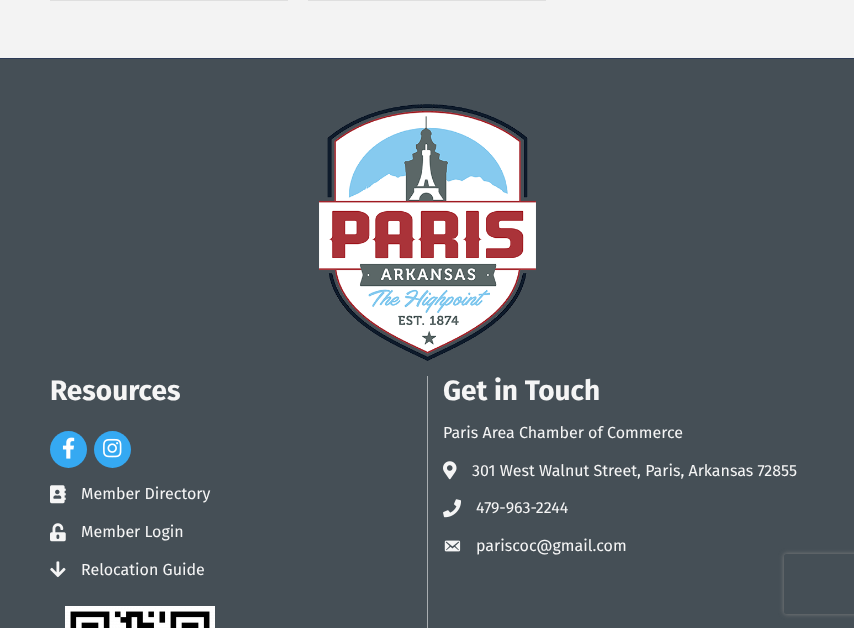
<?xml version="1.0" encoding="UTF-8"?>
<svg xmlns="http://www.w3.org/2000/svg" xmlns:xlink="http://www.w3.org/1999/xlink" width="854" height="628">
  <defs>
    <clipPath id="clip1"><path d="M 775 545 h 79 v 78 h -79 z m 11 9 h 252 c 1 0 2 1 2 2 v 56 c 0 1 -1 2 -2 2 h -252 c -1 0 -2 -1 -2 -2 v -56 c 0 -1 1 -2 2 -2 z" clip-rule="evenodd" /></clipPath>
  </defs>
  <rect width="100%" height="100%" fill="#f3f3f3" />
  <rect x="50.5" y="-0.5" width="237" height="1" fill="none" stroke="#dfdfdf" />
  <rect x="308.5" y="-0.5" width="237" height="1" fill="none" stroke="#dfdfdf" />
  <rect y="59" width="854" height="569" fill="#454f56" />
  <rect y="58" width="854" height="1" fill="#2c3a56" />
  <image x="319" y="104" width="217" height="257" xlink:href="image1.png" />
  <circle cx="68.5" cy="449.5" r="18.5" fill="#35a9f2" />
  <image x="62" y="437" width="13" height="22" xlink:href="image2.png" />
  <circle cx="112.5" cy="449.5" r="18.5" fill="#35a9f2" />
  <image x="103" y="438" width="19" height="20" xlink:href="image3.png" />
  <image x="50" y="485" width="16" height="19" xlink:href="image4.png" />
  <image x="50" y="523" width="16" height="19" xlink:href="image5.png" />
  <image x="50" y="561" width="16" height="17" xlink:href="image6.png" />
  <image x="65" y="606" width="150" height="22" xlink:href="image7.png" />
  <rect x="427" y="376" width="1" height="252" fill="#a9aeb1" />
  <image x="443" y="461" width="14" height="19" xlink:href="image8.png" />
  <image x="443" y="499" width="18" height="19" xlink:href="image9.png" />
  <image x="444" y="540" width="17" height="12" xlink:href="image10.png" />
  <g clip-path="url(#clip1)">
    <rect x="784" y="554" width="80" height="60" rx="2" fill="#808080" filter="blur(2.5px)" />
  </g>
  <text x="50" y="400" style="font-family: Fira Sans; font-size: 28px; font-weight: bold; fill: #f5f5f5">Resources</text>
  <text x="81" y="499" style="font-family: Fira Sans; font-size: 16px; fill: #f5f5f5">Member Directory</text>
  <text x="81" y="537" style="font-family: Fira Sans; font-size: 16px; fill: #f5f5f5">Member Login</text>
  <text x="81" y="575" style="font-family: Fira Sans; font-size: 16px; fill: #f5f5f5">Relocation Guide</text>
  <text x="443" y="400" style="font-family: Fira Sans; font-size: 28px; font-weight: bold; fill: #f5f5f5">Get in Touch</text>
  <text x="443" y="438" style="font-family: Fira Sans; font-size: 16px; fill: #f5f5f5">Paris Area Chamber of Commerce</text>
  <text x="472" y="476" style="font-family: Fira Sans; font-size: 16px; fill: #f5f5f5">301 West Walnut Street, Paris, Arkansas 72855</text>
  <text x="476" y="513" style="font-family: Fira Sans; font-size: 16px; fill: #f5f5f5">479-963-2244</text>
  <text x="476" y="551" style="font-family: Fira Sans; font-size: 16px; fill: #f5f5f5">pariscoc@gmail.com</text>
</svg>
